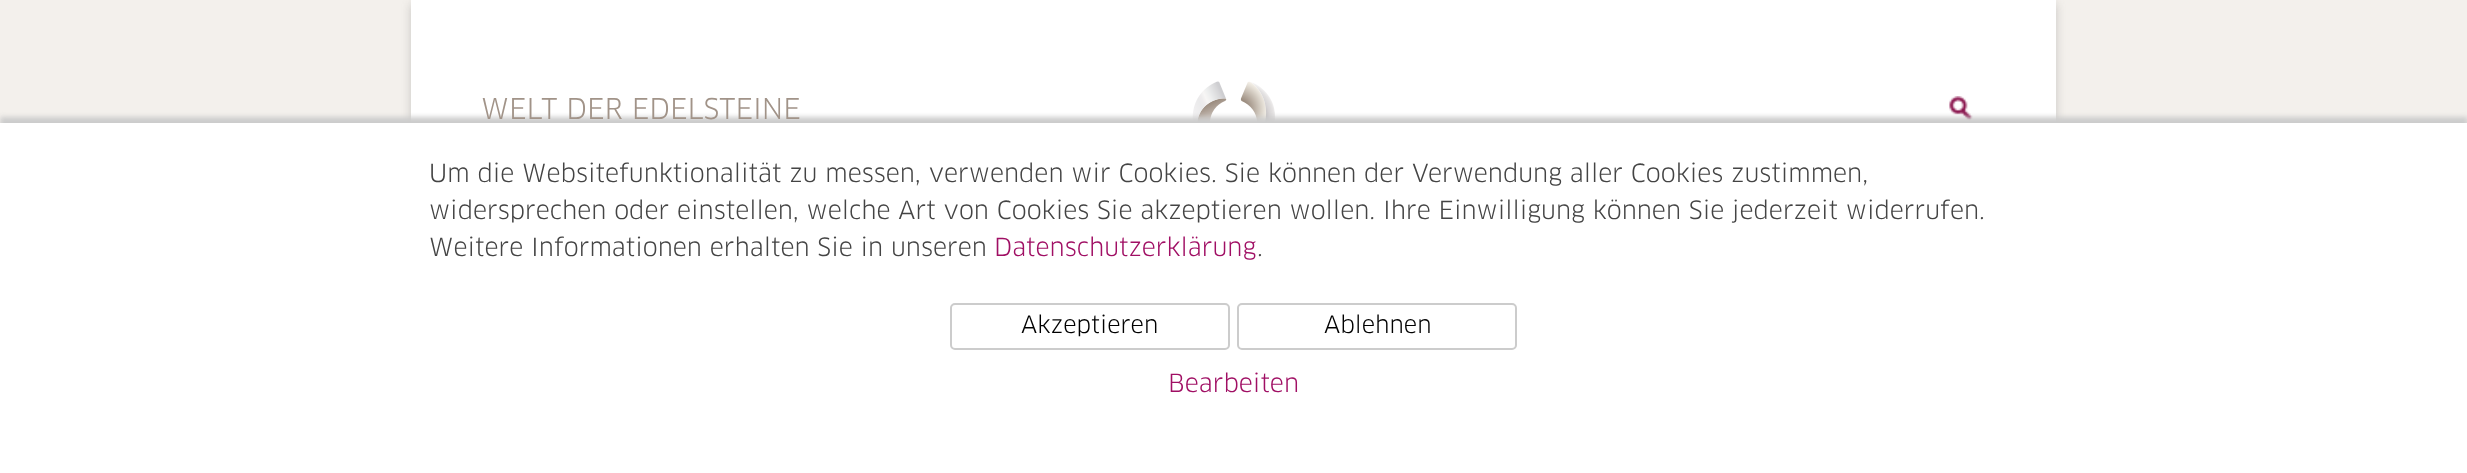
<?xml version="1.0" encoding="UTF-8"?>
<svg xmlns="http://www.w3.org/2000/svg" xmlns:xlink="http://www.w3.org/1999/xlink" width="2467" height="473">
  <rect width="100%" height="100%" fill="#f3f0ec" />
  <rect x="411" y="4" width="1645" height="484" fill="#646464" fill-opacity="0.3" filter="blur(5px)" />
  <rect x="411" width="1645" height="123" fill="#ffffff" />
  <image x="1192" y="81" width="84" height="42" xlink:href="image1.png" />
  <image x="1949" y="96" width="24" height="25" xlink:href="image2.png" />
  <rect y="117" width="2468" height="352" fill="#cccccc" filter="blur(2.5px)" />
  <rect y="123" width="2467" height="350" fill="#ffffff" />
  <rect x="951" y="304" width="278" height="45" rx="4" fill="none" stroke="#cccccc" stroke-width="2" />
  <rect x="1238" y="304" width="278" height="45" rx="4" fill="none" stroke="#cccccc" stroke-width="2" />
  <text x="481" y="119" style="font-family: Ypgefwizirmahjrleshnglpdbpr; font-size: 28px; fill: #a19388">WELT DER EDELSTEINE</text>
  <text x="429" y="182" style="font-family: Ypgefwizirmahjrleshnglpdbpr; font-size: 24.5px; fill: #444444">Um die Websitefunktionalität zu messen, verwenden wir Cookies. Sie können der Verwendung aller Cookies zustimmen,</text>
  <text x="429" y="219" style="font-family: Ypgefwizirmahjrleshnglpdbpr; font-size: 24.5px; fill: #444444">widersprechen oder einstellen, welche Art von Cookies Sie akzeptieren wollen. Ihre Einwilligung können Sie jederzeit widerrufen.</text>
  <text x="429" y="256" style="font-family: Ypgefwizirmahjrleshnglpdbpr; font-size: 24.5px; fill: #444444">Weitere Informationen erhalten Sie in unseren</text>
  <text x="994" y="256" style="font-family: Ypgefwizirmahjrleshnglpdbpr; font-size: 24.5px; fill: #a00f64">Datenschutzerklärung</text>
  <text x="1257" y="256" style="font-family: Ypgefwizirmahjrleshnglpdbpr; font-size: 24.5px; fill: #444444">.</text>
  <text x="1021" y="333" style="font-family: Ypgefwizirmahjrleshnglpdbpr; font-size: 23.25px; fill: #000000">Akzeptieren</text>
  <text x="1324" y="333" style="font-family: Ypgefwizirmahjrleshnglpdbpr; font-size: 23.25px; fill: #000000">Ablehnen</text>
  <text x="1168" y="392" style="font-family: Ypgefwizirmahjrleshnglpdbpr; font-size: 24.5px; fill: #a00f64">Bearbeiten</text>
</svg>
